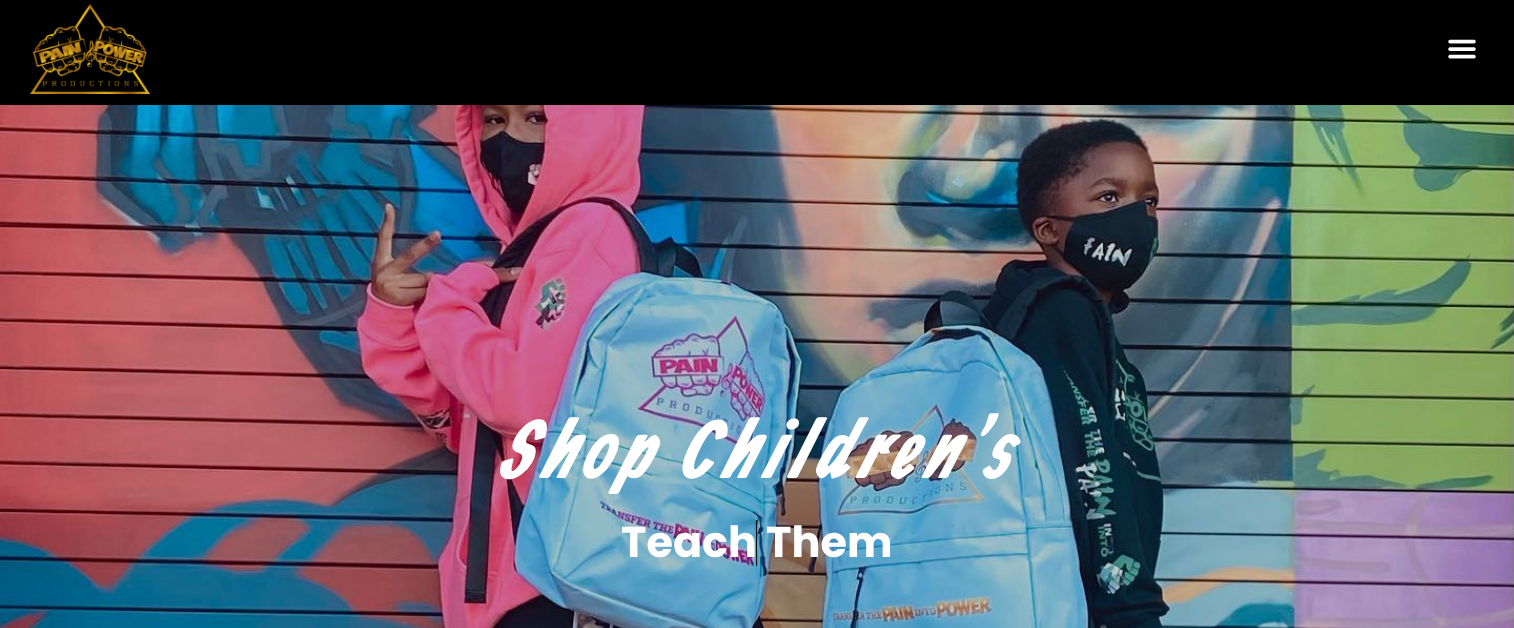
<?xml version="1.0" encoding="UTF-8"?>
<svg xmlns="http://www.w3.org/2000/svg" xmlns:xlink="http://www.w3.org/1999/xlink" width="1514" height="628">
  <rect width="100%" height="100%" fill="#ffffff" />
  <rect width="1514" height="105" fill="#000000" />
  <image x="30" y="4" width="120" height="90" xlink:href="image1.png" />
  <image x="1448" y="39" width="28" height="20" xlink:href="image2.png" />
  <image x="0" y="105" width="1514" height="523" xlink:href="image3.png" />
  <rect x="756" y="520" width="1" height="46" fill="#0d0d0d" />
  <text x="496" y="478" style="font-family: Allan; font-size: 82px; font-weight: bold; font-style: italic; letter-spacing: 6.25px; fill: #ffffff">Shop Children's</text>
  <text x="621" y="557" style="font-family: Poppins; font-size: 43px; font-weight: bold; fill: #ffffff">Teach</text>
  <text x="766" y="557" style="font-family: Poppins; font-size: 43px; font-weight: bold; fill: #ffffff">Them</text>
</svg>
